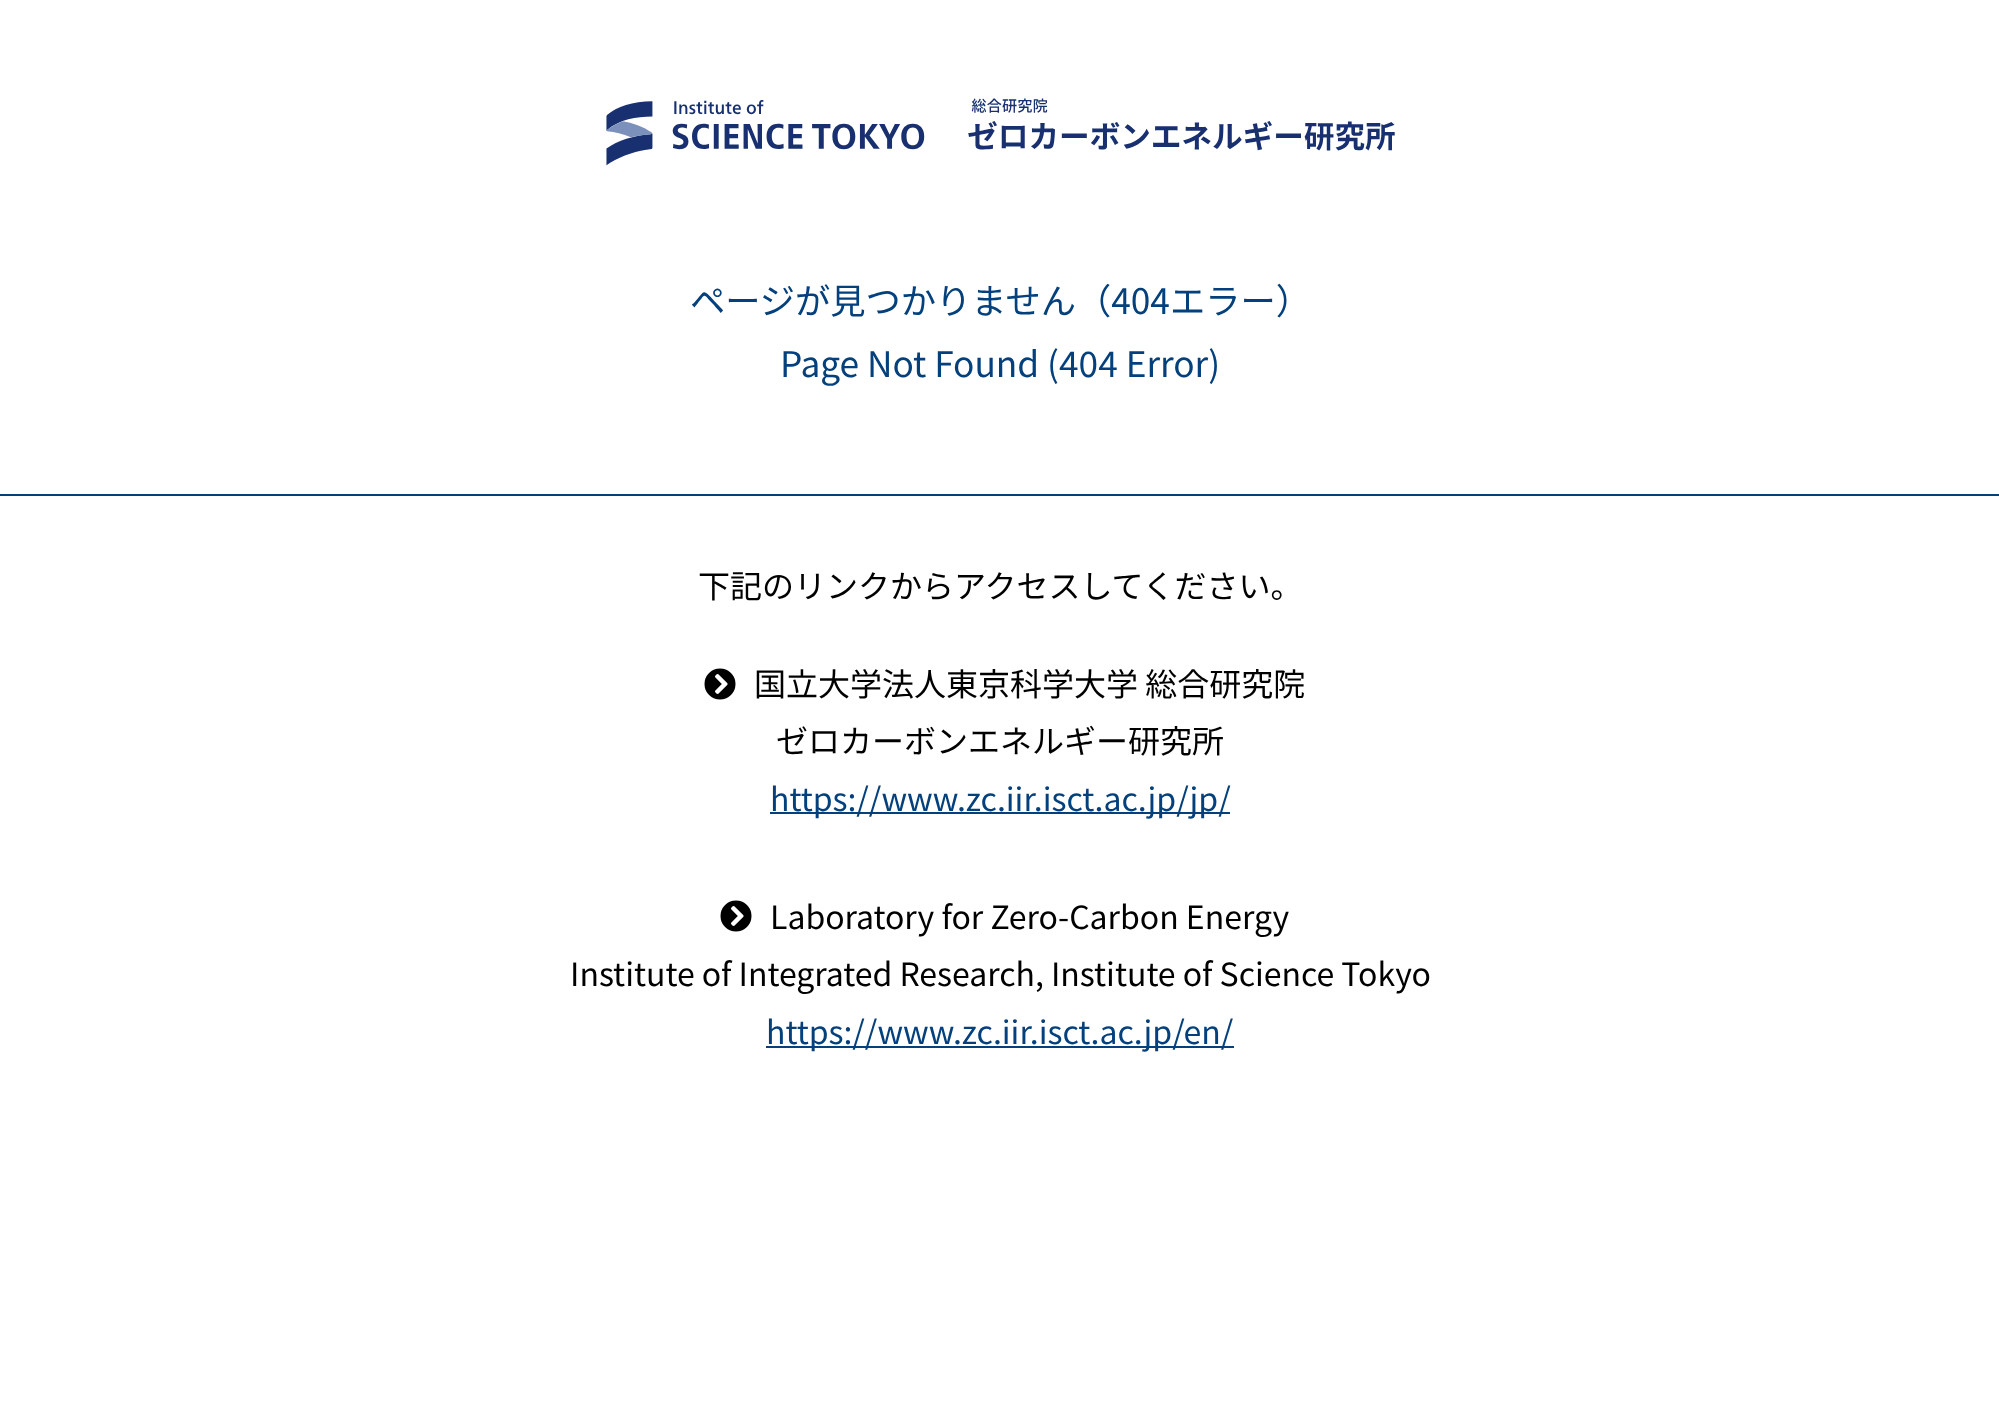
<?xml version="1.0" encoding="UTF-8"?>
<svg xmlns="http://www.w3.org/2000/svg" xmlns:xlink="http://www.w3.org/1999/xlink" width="1999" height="1409">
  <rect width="100%" height="100%" fill="#ffffff" />
  <image x="606" y="98" width="789" height="68" xlink:href="image1.png" />
  <rect y="494" width="1999" height="2" fill="#03407c" />
  <image x="704" y="668" width="32" height="32" xlink:href="image2.png" />
  <rect x="770" y="812" width="460" height="2" fill="#03407c" />
  <image x="720" y="900" width="32" height="32" xlink:href="image2.png" />
  <rect x="766" y="1046" width="468" height="2" fill="#03407c" />
  <text x="690" y="314" style="font-family: Noto Sans JP; font-size: 35.25px; fill: #03407c">ページが見つかりません（404エラー）</text>
  <text x="780" y="377" style="font-family: Noto Sans JP; font-size: 35.25px; fill: #03407c">Page Not Found (404 Error)</text>
  <text x="698" y="598" style="font-family: Noto Sans JP; font-size: 32px; fill: #000000">下記のリンクからアクセスしてください。</text>
  <text x="754" y="696" style="font-family: Noto Sans JP; font-size: 32px; fill: #000000">国立大学法人東京科学大学 総合研究院</text>
  <text x="776" y="753" style="font-family: Noto Sans JP; font-size: 32px; fill: #000000">ゼロカーボンエネルギー研究所</text>
  <text x="770" y="811" style="font-family: Noto Sans JP; font-size: 32px; fill: #03407c">https://www.zc.iir.isct.ac.jp/jp/</text>
  <text x="770" y="929" style="font-family: Noto Sans JP; font-size: 32px; fill: #000000">Laboratory for Zero-Carbon Energy</text>
  <text x="570" y="986" style="font-family: Noto Sans JP; font-size: 32px; fill: #000000">Institute of Integrated Research, Institute of Science Tokyo</text>
  <text x="766" y="1044" style="font-family: Noto Sans JP; font-size: 32px; fill: #03407c">https://www.zc.iir.isct.ac.jp/en/</text>
</svg>
